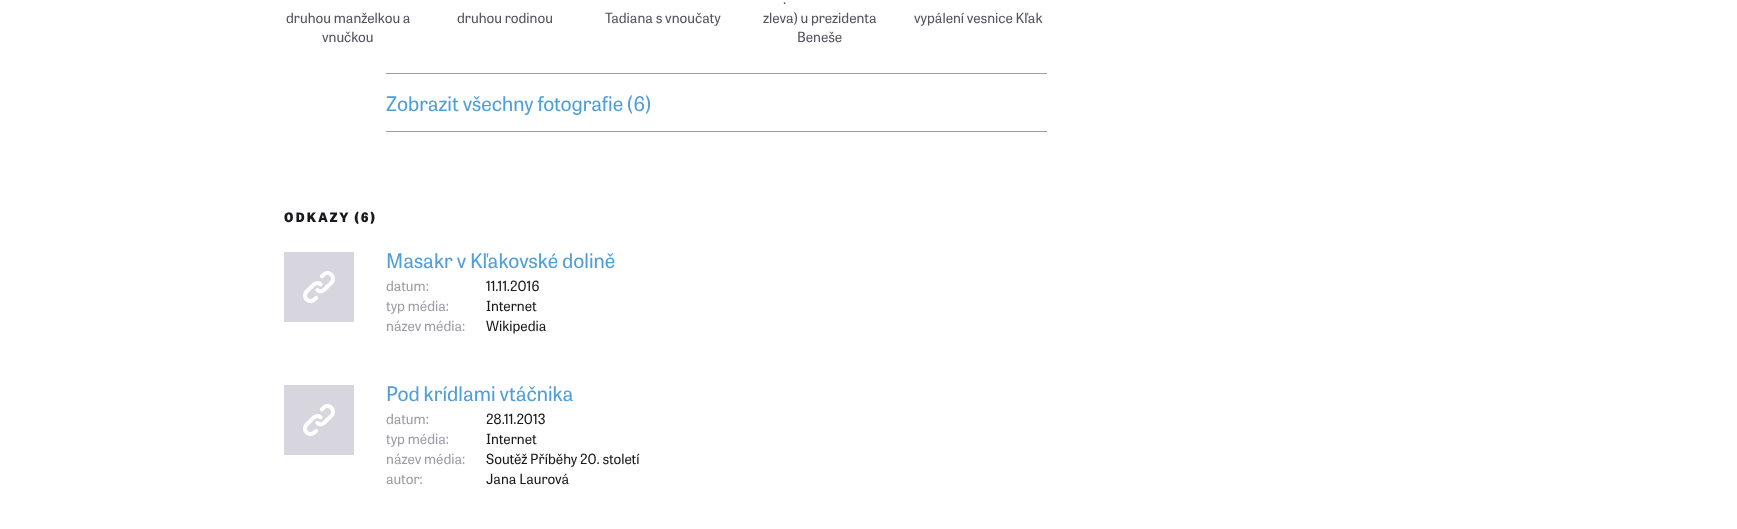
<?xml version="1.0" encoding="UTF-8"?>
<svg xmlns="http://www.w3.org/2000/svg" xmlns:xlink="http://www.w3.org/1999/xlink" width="1737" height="529">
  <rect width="100%" height="100%" fill="#ffffff" />
  <rect x="386" y="73" width="661" height="1" fill="#9e9ea9" />
  <rect x="386" y="131" width="661" height="1" fill="#9e9ea9" />
  <rect x="284" y="252" width="70" height="70" fill="#d7d6de" />
  <image x="303" y="271" width="32" height="32" xlink:href="image1.png" />
  <rect x="284" y="385" width="70" height="70" fill="#d7d6de" />
  <image x="303" y="404" width="32" height="32" xlink:href="image1.png" />
  <text x="286" y="23" style="font-family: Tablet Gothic; font-size: 14px; fill: #555561">druhou manželkou a</text>
  <text x="322" y="42" style="font-family: Tablet Gothic; font-size: 14px; fill: #555561">vnučkou</text>
  <text x="457" y="23" style="font-family: Tablet Gothic; font-size: 14px; fill: #555561">druhou rodinou</text>
  <text x="605" y="23" style="font-family: Tablet Gothic; font-size: 14px; fill: #555561">Tadiana s vnoučaty</text>
  <text x="783" y="4" style="font-family: Tablet Gothic; font-size: 14px; fill: #555561">.</text>
  <text x="763" y="23" style="font-family: Tablet Gothic; font-size: 14px; fill: #555561">zleva) u prezidenta</text>
  <text x="797" y="42" style="font-family: Tablet Gothic; font-size: 14px; fill: #555561">Beneše</text>
  <text x="914" y="23" style="font-family: Tablet Gothic; font-size: 14px; fill: #555561">vypálení vesnice Kľak</text>
  <text x="386" y="111" style="font-family: Tablet Gothic; font-size: 20px; fill: #519fd7">Zobrazit všechny fotografie (6)</text>
  <text x="284" y="222" style="font-family: Tablet Gothic; font-size: 13px; font-weight: 800; letter-spacing: 2px; fill: #1a1a1e">ODKAZY (6)</text>
  <text x="386" y="268" style="font-family: Tablet Gothic; font-size: 20px; fill: #519fd7">Masakr v Kľakovské dolině</text>
  <text x="386" y="291" style="font-family: Tablet Gothic; font-size: 14px; fill: #9e9ea9">datum:</text>
  <text x="486" y="291" style="font-family: Tablet Gothic; font-size: 14px; fill: #1a1a1e">11.11.2016</text>
  <text x="386" y="311" style="font-family: Tablet Gothic; font-size: 14px; fill: #9e9ea9">typ média:</text>
  <text x="486" y="311" style="font-family: Tablet Gothic; font-size: 14px; fill: #1a1a1e">Internet</text>
  <text x="386" y="331" style="font-family: Tablet Gothic; font-size: 14px; fill: #9e9ea9">název média:</text>
  <text x="486" y="331" style="font-family: Tablet Gothic; font-size: 14px; fill: #1a1a1e">Wikipedia</text>
  <text x="386" y="401" style="font-family: Tablet Gothic; font-size: 20px; fill: #519fd7">Pod krídlami vtáčnika</text>
  <text x="386" y="424" style="font-family: Tablet Gothic; font-size: 14px; fill: #9e9ea9">datum:</text>
  <text x="486" y="424" style="font-family: Tablet Gothic; font-size: 14px; fill: #1a1a1e">28.11.2013</text>
  <text x="386" y="444" style="font-family: Tablet Gothic; font-size: 14px; fill: #9e9ea9">typ média:</text>
  <text x="486" y="444" style="font-family: Tablet Gothic; font-size: 14px; fill: #1a1a1e">Internet</text>
  <text x="386" y="464" style="font-family: Tablet Gothic; font-size: 14px; fill: #9e9ea9">název média:</text>
  <text x="486" y="464" style="font-family: Tablet Gothic; font-size: 14px; fill: #1a1a1e">Soutěž Příběhy 20. století</text>
  <text x="386" y="484" style="font-family: Tablet Gothic; font-size: 14px; fill: #9e9ea9">autor:</text>
  <text x="486" y="484" style="font-family: Tablet Gothic; font-size: 14px; fill: #1a1a1e">Jana Laurová</text>
</svg>
